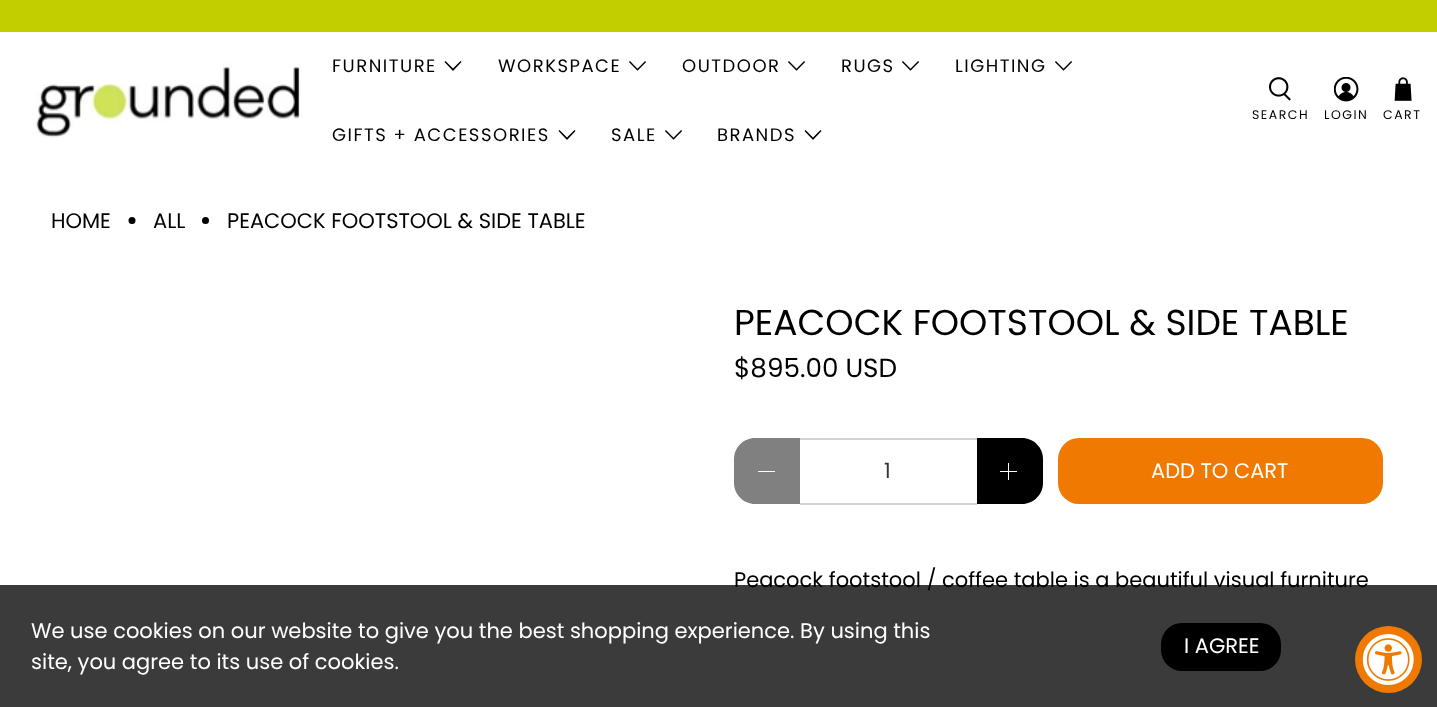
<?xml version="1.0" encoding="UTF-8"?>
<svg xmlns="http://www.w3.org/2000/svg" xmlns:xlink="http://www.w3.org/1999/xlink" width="1437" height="707">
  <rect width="100%" height="100%" fill="#ffffff" />
  <rect width="1437" height="32" fill="#c3ce00" />
  <image x="36" y="63" width="265" height="75" xlink:href="image1.png" />
  <path d="M 453 71 l -8.5 -9 l 1 -1 l 7.5 7.5 l 7.5 -7.5 l 1 1 z" fill="#000000" />
  <image x="629" y="61" width="17" height="10" xlink:href="image2.png" />
  <image x="788" y="61" width="17" height="10" xlink:href="image2.png" />
  <image x="902" y="61" width="17" height="10" xlink:href="image2.png" />
  <image x="1055" y="61" width="17" height="10" xlink:href="image2.png" />
  <path d="M 567 140 l -8.5 -9 l 1 -1 l 7.5 7.5 l 7.5 -7.5 l 1 1 z" fill="#000000" />
  <image x="665" y="130" width="17" height="10" xlink:href="image2.png" />
  <path d="M 813 140 l -8.5 -9 l 1 -1 l 7.5 7.5 l 7.5 -7.5 l 1 1 z" fill="#000000" />
  <image x="1269" y="77" width="22" height="24" xlink:href="image3.png" />
  <image x="1334" y="77" width="25" height="25" xlink:href="image4.png" />
  <image x="1394" y="77" width="18" height="24" xlink:href="image5.png" />
  <circle cx="132" cy="220.5" r="3.5" fill="#000000" />
  <circle cx="205.5" cy="220.5" r="3.5" fill="#000000" />
  <path d="M 755 438 h 45 v 66 h -45 c -11.5 0 -21 -9.5 -21 -21 v -24 c 0 -11.5 9.5 -21 21 -21 z" fill="#808080" />
  <rect x="758" y="471" width="17" height="1" fill="#ffffff" />
  <rect x="800" y="438" width="177" height="2" fill="#d3d3d3" />
  <rect x="800" y="503" width="177" height="2" fill="#d3d3d3" />
  <path d="M 977 438 h 45 c 11.5 0 21 9.5 21 21 v 24 c 0 11.5 -9.5 21 -21 21 h -45 z" fill="#000000" />
  <rect x="1000" y="471" width="17" height="1" fill="#ffffff" />
  <rect x="1008" y="463" width="1" height="17" fill="#ffffff" />
  <rect x="1058" y="438" width="325" height="66" rx="21" fill="#f07a01" />
  <text x="332" y="72" style="font-family: Poppins; font-size: 18px; letter-spacing: 1.5px; fill: #000000">FURNITURE</text>
  <text x="498" y="72" style="font-family: Poppins; font-size: 18px; letter-spacing: 1.5px; fill: #000000">WORKSPACE</text>
  <text x="682" y="72" style="font-family: Poppins; font-size: 18px; letter-spacing: 1.5px; fill: #000000">OUTDOOR</text>
  <text x="841" y="72" style="font-family: Poppins; font-size: 18px; letter-spacing: 1.5px; fill: #000000">RUGS</text>
  <text x="955" y="72" style="font-family: Poppins; font-size: 18px; letter-spacing: 1.5px; fill: #000000">LIGHTING</text>
  <text x="332" y="141" style="font-family: Poppins; font-size: 18px; letter-spacing: 1.5px; fill: #000000">GIFTS + ACCESSORIES</text>
  <text x="611" y="141" style="font-family: Poppins; font-size: 18px; letter-spacing: 1.5px; fill: #000000">SALE</text>
  <text x="717" y="141" style="font-family: Poppins; font-size: 18px; letter-spacing: 1.5px; fill: #000000">BRANDS</text>
  <text x="1252" y="119" style="font-family: Poppins; font-size: 12.5px; letter-spacing: 1.5px; fill: #000000">SEARCH</text>
  <text x="1324" y="119" style="font-family: Poppins; font-size: 12.5px; letter-spacing: 1.5px; fill: #000000">LOGIN</text>
  <text x="1383" y="119" style="font-family: Poppins; font-size: 12.5px; letter-spacing: 1.5px; fill: #000000">CART</text>
  <text x="51" y="228" style="font-family: Poppins; font-size: 21px; fill: #000000">HOME</text>
  <text x="153" y="228" style="font-family: Poppins; font-size: 21px; fill: #000000">ALL</text>
  <text x="227" y="228" style="font-family: Poppins; font-size: 21px; fill: #000000">PEACOCK FOOTSTOOL &amp; SIDE TABLE</text>
  <text x="734" y="335" style="font-family: Poppins; font-size: 36px; fill: #000000">PEACOCK FOOTSTOOL &amp; SIDE TABLE</text>
  <text x="734" y="377" style="font-family: Poppins; font-size: 26.25px; fill: #000000">$895.00 USD</text>
  <text x="884" y="478" style="font-family: Poppins; font-size: 21px; fill: #363636">1</text>
  <text x="1151" y="478" style="font-family: Poppins; font-size: 21px; fill: #ffffff">ADD TO CART</text>
  <text x="734" y="587" style="font-family: Poppins; font-size: 21px; fill: #000000">Peacock footstool / coffee table is a beautiful visual furniture</text>
  <rect y="585" width="1437" height="122" fill="#000000" fill-opacity="0.77" />
  <text x="31" y="638" style="font-family: Poppins; font-size: 21px; fill: #ffffff">We use cookies on our website to give you the best shopping experience. By using this</text>
  <text x="31" y="669" style="font-family: Poppins; font-size: 21px; fill: #ffffff">site, you agree to its use of cookies.</text>
  <rect x="1161" y="623" width="120" height="48" rx="21" fill="#000000" />
  <text x="1184" y="653" style="font-family: Poppins; font-size: 21px; fill: #ffffff">I AGREE</text>
  <circle cx="1388.5" cy="659.5" r="33.5" fill="#f07a01" />
  <image x="1362" y="634" width="52" height="51" xlink:href="image6.png" />
</svg>
